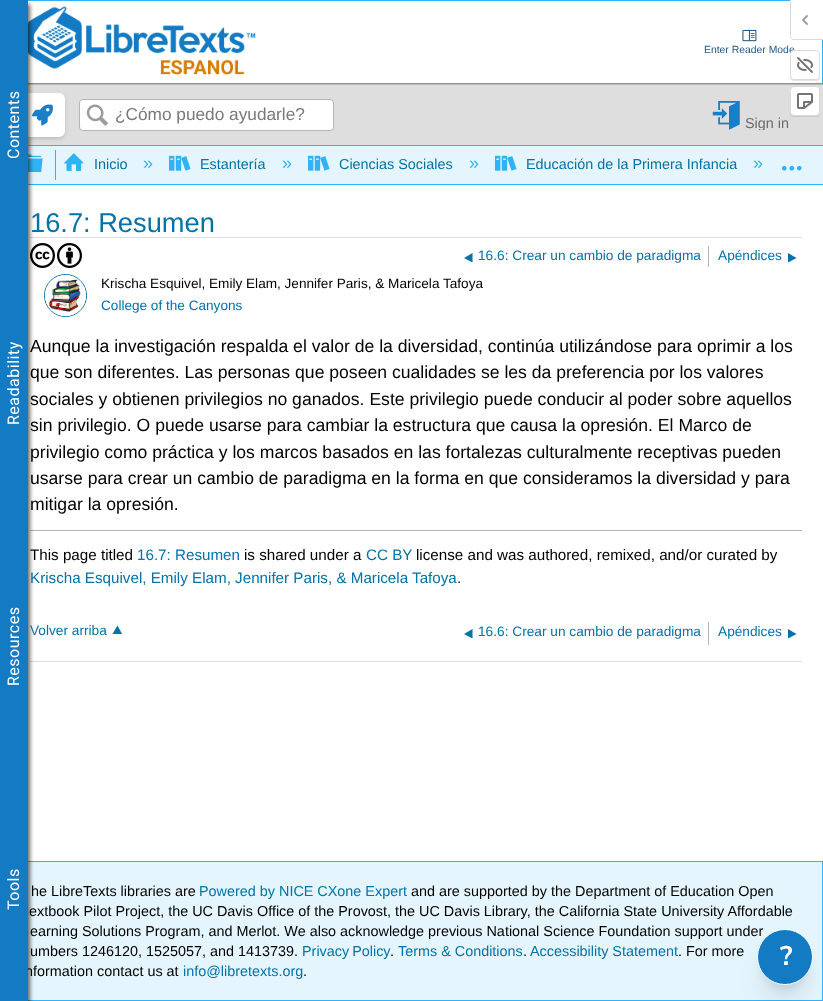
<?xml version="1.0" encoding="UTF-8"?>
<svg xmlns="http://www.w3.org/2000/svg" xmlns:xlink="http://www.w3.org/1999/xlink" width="823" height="1001">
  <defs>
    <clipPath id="clip1"><rect x="711" y="100" width="84" height="30" /></clipPath>
  </defs>
  <rect width="100%" height="100%" fill="#ffffff" />
  <rect x="0.5" y="0.5" width="822" height="83" fill="none" stroke="#30b3f6" />
  <image x="28" y="6" width="228" height="69" xlink:href="image1.png" />
  <rect x="28" y="85" width="795" height="60" fill="#dedede" />
  <rect x="28" y="84" width="795" height="1" fill="#b6b6b6" />
  <rect x="28" y="146" width="795" height="38" fill="#e5f5fe" />
  <rect x="28" y="145" width="795" height="1" fill="#30b3f6" />
  <rect x="22" y="96" width="42" height="42" rx="5" fill="#080808" fill-opacity="0.2" filter="blur(2.5px)" />
  <rect x="21" y="93" width="44" height="44" rx="6" fill="#ffffff" />
  <image x="32" y="104" width="21" height="22" xlink:href="image3.png" />
  <rect x="28" y="184" width="795" height="1" fill="#30b3f6" />
  <image x="28" y="154" width="15" height="18" xlink:href="image6.png" />
  <rect x="30" y="237" width="772" height="1" fill="#dddddd" />
  <image x="30" y="243" width="25" height="25" xlink:href="image10.png" />
  <rect x="30" y="530" width="772" height="1" fill="#b4b4b4" />
  <rect x="30" y="661" width="772" height="1" fill="#dddddd" />
  <rect x="28" y="862" width="794" height="138" fill="#e5f5fe" />
  <rect x="0.5" y="861.5" width="822" height="139" fill="none" stroke="#30b3f6" />
  <rect x="2" y="4" width="28" height="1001" fill="#000000" fill-opacity="0.6" filter="blur(2px)" />
  <image x="742" y="29" width="15" height="13" xlink:href="image2.png" />
  <rect x="79.5" y="99.5" width="254" height="31" rx="3.5" fill="#ffffff" stroke="#b6b6b6" />
  <image x="86" y="104" width="22" height="22" xlink:href="image4.png" />
  <image x="712" y="101" width="28" height="29" xlink:href="image5.png" />
  <rect x="55" y="150" width="1" height="30" fill="#30b3f6" />
  <image x="64" y="153" width="20" height="18" xlink:href="image7.png" />
  <image x="169" y="155" width="22" height="16" xlink:href="image8.png" />
  <image x="308" y="155" width="22" height="16" xlink:href="image8.png" />
  <image x="495" y="155" width="22" height="16" xlink:href="image8.png" />
  <image x="781" y="165" width="21" height="6" xlink:href="image9.png" />
  <image x="57" y="243" width="25" height="25" xlink:href="image11.png" />
  <rect x="708" y="246" width="1" height="21" fill="#b4b4b4" />
  <path d="M 472.5 253 v 9.5 l -8.5 -4.5 z" fill="#0372a6" />
  <path d="M 788 253 v 9.5 l 8.5 -4.5 z" fill="#0372a6" />
  <circle cx="65.5" cy="295.5" r="21" fill="none" stroke="#0372a6" />
  <image x="45" y="275" width="41" height="41" xlink:href="image12.png" />
  <path d="M 112.5 634 h 9.5 l -4.5 -8.5 z" fill="#0372a6" />
  <rect x="708" y="622" width="1" height="23" fill="#b4b4b4" />
  <path d="M 472.5 629 v 9.5 l -8.5 -4.5 z" fill="#0372a6" />
  <path d="M 788 629 v 9.5 l 8.5 -4.5 z" fill="#0372a6" />
  <rect x="763" y="943" width="44" height="44" rx="22" fill="#000000" fill-opacity="0.1" filter="blur(5px)" />
  <rect x="762" y="954" width="46" height="46" rx="23" fill="#000000" fill-opacity="0.1" filter="blur(12.5px)" />
  <path d="M 791 0 h 32 v 39 h -29 c -1.5 0 -3 -1.5 -3 -3 z" fill="#ffffff" />
  <path d="M 790 0 h 33 v 40 h -29 c -2 0 -4 -2 -4 -4 z m 1 0 h 32 v 39 h -29 c -2 0 -3 -1 -3 -3 z" fill="#dbdbdb" fill-rule="evenodd" />
  <image x="802" y="15" width="6" height="10" xlink:href="image13.png" />
  <rect x="790" y="51" width="30" height="30" rx="4" fill="#000000" fill-opacity="0.1" filter="blur(0.5px)" />
  <rect x="790" y="87" width="30" height="30" rx="4" fill="#000000" fill-opacity="0.1" filter="blur(0.5px)" />
  <rect x="790.5" y="86.5" width="29" height="29" rx="3.5" fill="#ffffff" stroke="#dbdbdb" />
  <image x="797" y="93" width="16" height="16" xlink:href="image15.png" />
  <text x="704" y="53" style="font-family: Liberation Sans; font-size: 10.4px; fill: #235a8b">Enter Reader Mode</text>
  <text x="115" y="120" style="font-family: Liberation Sans; font-size: 17.25px; fill: #797979">¿Cómo puedo ayudarle?</text>
  <g clip-path="url(#clip1)">
    <text x="745" y="128" style="font-family: Liberation Sans; font-size: 14.4px; fill: #6b6b6b">Sign in</text>
  </g>
  <text x="94" y="169" style="font-family: Liberation Sans; font-size: 14.4px; fill: #0372a6">Inicio</text>
  <text x="143" y="169" style="font-family: Liberation Sans; font-size: 18px; fill: #30b3f6">»</text>
  <text x="200" y="169" style="font-family: Liberation Sans; font-size: 14.4px; fill: #0372a6">Estantería</text>
  <text x="282" y="169" style="font-family: Liberation Sans; font-size: 18px; fill: #30b3f6">»</text>
  <text x="339" y="169" style="font-family: Liberation Sans; font-size: 14.4px; fill: #0372a6">Ciencias Sociales</text>
  <text x="469" y="169" style="font-family: Liberation Sans; font-size: 18px; fill: #30b3f6">»</text>
  <text x="526" y="169" style="font-family: Liberation Sans; font-size: 14.4px; fill: #0372a6">Educación de la Primera Infancia</text>
  <text x="753" y="169" style="font-family: Liberation Sans; font-size: 18px; fill: #30b3f6">»</text>
  <text x="30" y="232" style="font-family: Liberation Sans; font-size: 27.25px; fill: #0372a6">16.7: Resumen</text>
  <text x="478" y="260" style="font-family: Liberation Sans; font-size: 13.7px; fill: #0372a6">16.6: Crear un cambio de paradigma</text>
  <text x="718" y="260" style="font-family: Liberation Sans; font-size: 13.7px; fill: #0372a6">Apéndices</text>
  <text x="101" y="288" style="font-family: Liberation Sans; font-size: 13.6px; fill: #000000">Krischa Esquivel, Emily Elam, Jennifer Paris, &amp; Maricela Tafoya</text>
  <text x="101" y="310" style="font-family: Liberation Sans; font-size: 13.6px; fill: #0372a6">College of the Canyons</text>
  <text x="30" y="352" style="font-family: Liberation Sans; font-size: 17.6px; fill: #000000">Aunque la investigación respalda el valor de la diversidad, continúa utilizándose para oprimir a los</text>
  <text x="30" y="378" style="font-family: Liberation Sans; font-size: 17.6px; fill: #000000">que son diferentes. Las personas que poseen cualidades se les da preferencia por los valores</text>
  <text x="30" y="405" style="font-family: Liberation Sans; font-size: 17.6px; fill: #000000">sociales y obtienen privilegios no ganados. Este privilegio puede conducir al poder sobre aquellos</text>
  <text x="30" y="431" style="font-family: Liberation Sans; font-size: 17.6px; fill: #000000">sin privilegio. O puede usarse para cambiar la estructura que causa la opresión. El Marco de</text>
  <text x="30" y="458" style="font-family: Liberation Sans; font-size: 17.6px; fill: #000000">privilegio como práctica y los marcos basados en las fortalezas culturalmente receptivas pueden</text>
  <text x="30" y="484" style="font-family: Liberation Sans; font-size: 17.6px; fill: #000000">usarse para crear un cambio de paradigma en la forma en que consideramos la diversidad y para</text>
  <text x="30" y="510" style="font-family: Liberation Sans; font-size: 17.6px; fill: #000000">mitigar la opresión.</text>
  <text x="30" y="560" style="font-family: Liberation Sans; font-size: 15.2px; fill: #000000">This page titled</text>
  <text x="137" y="560" style="font-family: Liberation Sans; font-size: 15.2px; fill: #0372a6">16.7: Resumen</text>
  <text x="244" y="560" style="font-family: Liberation Sans; font-size: 15.2px; fill: #000000">is shared under a</text>
  <text x="366" y="560" style="font-family: Liberation Sans; font-size: 15.2px; fill: #0372a6">CC BY</text>
  <text x="416" y="560" style="font-family: Liberation Sans; font-size: 15.2px; fill: #000000">license and was authored, remixed, and/or curated by</text>
  <text x="30" y="583" style="font-family: Liberation Sans; font-size: 15.2px; fill: #0372a6">Krischa Esquivel, Emily Elam, Jennifer Paris, &amp; Maricela Tafoya</text>
  <text x="457" y="583" style="font-family: Liberation Sans; font-size: 15.2px; fill: #000000">.</text>
  <text x="30" y="635" style="font-family: Liberation Sans; font-size: 13.7px; fill: #0372a6">Volver arriba</text>
  <text x="478" y="636" style="font-family: Liberation Sans; font-size: 13.7px; fill: #0372a6">16.6: Crear un cambio de paradigma</text>
  <text x="718" y="636" style="font-family: Liberation Sans; font-size: 13.7px; fill: #0372a6">Apéndices</text>
  <text x="31" y="896" style="font-family: Liberation Sans; font-size: 14.4px; fill: #000000">he LibreTexts libraries are</text>
  <text x="199" y="896" style="font-family: Liberation Sans; font-size: 14.4px; fill: #0372a6">Powered by NICE CXone Expert</text>
  <text x="411" y="896" style="font-family: Liberation Sans; font-size: 14.4px; fill: #000000">and are supported by the Department of Education Open</text>
  <text x="29" y="916" style="font-family: Liberation Sans; font-size: 14.4px; fill: #000000">extbook Pilot Project, the UC Davis Office of the Provost, the UC Davis Library, the California State University Affordable</text>
  <text x="30" y="936" style="font-family: Liberation Sans; font-size: 14.4px; fill: #000000">earning Solutions Program, and Merlot. We also acknowledge previous National Science Foundation support under</text>
  <text x="30" y="956" style="font-family: Liberation Sans; font-size: 14.4px; fill: #000000">umbers 1246120, 1525057, and 1413739.</text>
  <text x="302" y="956" word-spacing="-1" style="font-family: Liberation Sans; font-size: 14.4px; fill: #0372a6">Privacy Policy</text>
  <text x="390" y="956" style="font-family: Liberation Sans; font-size: 14.4px; fill: #000000">.</text>
  <text x="398" y="956" style="font-family: Liberation Sans; font-size: 14.4px; fill: #0372a6">Terms &amp; Conditions</text>
  <text x="523" y="956" style="font-family: Liberation Sans; font-size: 14.4px; fill: #000000">.</text>
  <text x="530" y="956" style="font-family: Liberation Sans; font-size: 14.4px; fill: #0372a6">Accessibility Statement</text>
  <text x="678" y="956" style="font-family: Liberation Sans; font-size: 14.4px; fill: #000000">. For more</text>
  <text x="25" y="976" style="font-family: Liberation Sans; font-size: 14.4px; fill: #000000">nformation contact us at</text>
  <rect width="28" height="1001" fill="#127bc4" />
  <text x="19" y="910" transform="rotate(-90 19 910)" style="font-family: Roboto; font-size: 16px; letter-spacing: 0.5px; fill: #ffffff">Tools</text>
  <text x="19" y="686" transform="rotate(-90 19 686)" style="font-family: Roboto; font-size: 16px; letter-spacing: 0.5px; fill: #ffffff">Resources</text>
  <text x="19" y="425" transform="rotate(-90 19 425)" style="font-family: Roboto; font-size: 16px; letter-spacing: 0.5px; fill: #ffffff">Readability</text>
  <text x="19" y="159" transform="rotate(-90 19 159)" style="font-family: Roboto; font-size: 16px; letter-spacing: 0.5px; fill: #ffffff">Contents</text>
  <text x="183" y="976" style="font-family: Liberation Sans; font-size: 14.4px; fill: #0372a6">info@libretexts.org</text>
  <text x="303" y="976" style="font-family: Liberation Sans; font-size: 14.4px; fill: #000000">.</text>
  <circle cx="785" cy="957" r="27.5" fill="#127bc4" stroke="#ffffff" />
  <text x="780" y="965" style="font-family: Nunito Sans; font-size: 27px; font-weight: bold; fill: #ffffff">?</text>
  <rect x="790.5" y="50.5" width="29" height="29" rx="3.5" fill="#ffffff" stroke="#dbdbdb" />
  <image x="797" y="57" width="16" height="16" xlink:href="image14.png" />
</svg>
